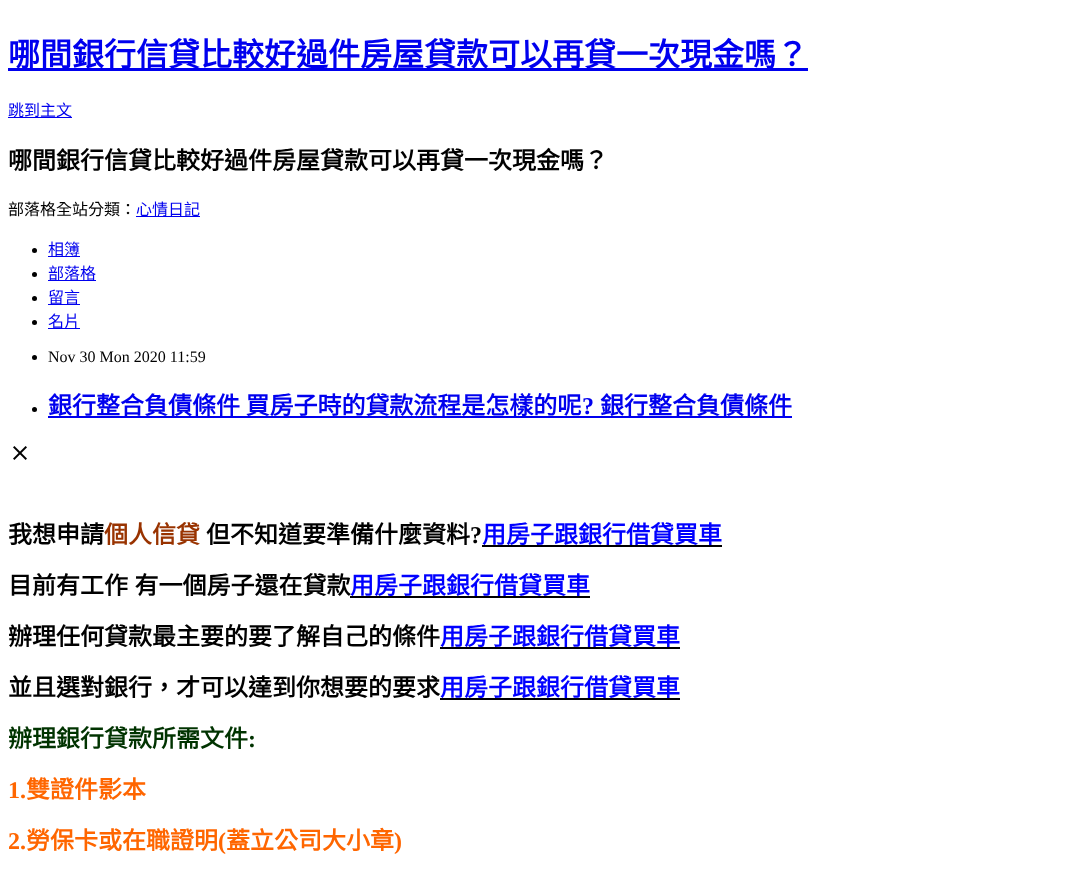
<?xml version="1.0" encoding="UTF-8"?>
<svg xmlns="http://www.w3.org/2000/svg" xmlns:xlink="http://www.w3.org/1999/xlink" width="1065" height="892">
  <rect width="100%" height="100%" fill="#ffffff" />
  <rect x="8" y="68" width="800" height="3" fill="#0000ee" />
  <rect x="8" y="117" width="64" height="1" fill="#0000ee" />
  <rect x="136" y="216" width="64" height="1" fill="#0000ee" />
  <circle cx="34.5" cy="250.5" r="2.5" fill="#000000" />
  <rect x="48" y="256" width="32" height="1" fill="#0000ee" />
  <circle cx="34.5" cy="274.5" r="2.5" fill="#000000" />
  <rect x="48" y="280" width="48" height="1" fill="#0000ee" />
  <circle cx="34.5" cy="298.5" r="2.5" fill="#000000" />
  <rect x="48" y="304" width="32" height="1" fill="#0000ee" />
  <circle cx="34.5" cy="322.5" r="2.5" fill="#000000" />
  <rect x="48" y="328" width="32" height="1" fill="#0000ee" />
  <circle cx="34.5" cy="357.5" r="2.5" fill="#000000" />
  <circle cx="34.5" cy="409.5" r="2.5" fill="#000000" />
  <rect x="48" y="416" width="744" height="2" fill="#0000ee" />
  <image x="13" y="446" width="14" height="14" xlink:href="image1.png" />
  <rect x="482" y="545" width="240" height="2" fill="#000000" />
  <rect x="350" y="596" width="240" height="2" fill="#000000" />
  <rect x="440" y="647" width="240" height="2" fill="#000000" />
  <rect x="440" y="698" width="240" height="2" fill="#000000" />
  <text x="8" y="66" style="font-family: Noto Sans CJK TC; font-size: 32px; font-weight: bold; fill: #0000ee">哪間銀行信貸比較好過件房屋貸款可以再貸一次現金嗎？</text>
  <text x="8" y="116" style="font-family: Noto Sans CJK TC; font-size: 16px; fill: #0000ee">跳到主文</text>
  <text x="8" y="169" style="font-family: Noto Sans CJK TC; font-size: 24px; font-weight: bold; fill: #000000">哪間銀行信貸比較好過件房屋貸款可以再貸一次現金嗎？</text>
  <text x="8" y="215" style="font-family: Noto Sans CJK TC; font-size: 16px; fill: #000000">部落格全站分類：</text>
  <text x="136" y="215" style="font-family: Noto Sans CJK TC; font-size: 16px; fill: #0000ee">心情日記</text>
  <text x="48" y="255" style="font-family: Noto Sans CJK TC; font-size: 16px; fill: #0000ee">相簿</text>
  <text x="48" y="279" style="font-family: Noto Sans CJK TC; font-size: 16px; fill: #0000ee">部落格</text>
  <text x="48" y="303" style="font-family: Noto Sans CJK TC; font-size: 16px; fill: #0000ee">留言</text>
  <text x="48" y="327" style="font-family: Noto Sans CJK TC; font-size: 16px; fill: #0000ee">名片</text>
  <text x="48" y="362" style="font-family: Liberation Serif; font-size: 16px; fill: #000000">Nov 30 Mon 2020 11:59</text>
  <text x="48" y="414" style="font-family: Noto Sans CJK TC; font-size: 24px; font-weight: bold; fill: #0000ee">銀行整合負債條件 買房子時的貸款流程是怎樣的呢</text>
  <text x="582" y="414" style="font-family: Liberation Serif; font-size: 24px; font-weight: bold; fill: #0000ee">?</text>
  <text x="600" y="414" style="font-family: Noto Sans CJK TC; font-size: 24px; font-weight: bold; fill: #0000ee">銀行整合負債條件</text>
  <text x="8" y="543" style="font-family: Noto Sans CJK TC; font-size: 24px; font-weight: bold; fill: #000000">我想申請</text>
  <text x="104" y="543" style="font-family: Noto Sans CJK TC; font-size: 24px; font-weight: bold; fill: #993300">個人信貸</text>
  <text x="206" y="543" style="font-family: Noto Sans CJK TC; font-size: 24px; font-weight: bold; fill: #000000">但不知道要準備什麼資料</text>
  <text x="470" y="543" style="font-family: Liberation Serif; font-size: 24px; font-weight: bold; fill: #000000">?</text>
  <text x="482" y="543" style="font-family: Noto Sans CJK TC; font-size: 24px; font-weight: bold; fill: #0000ff">用房子跟銀行借貸買車</text>
  <text x="8" y="594" word-spacing="1" style="font-family: Noto Sans CJK TC; font-size: 24px; font-weight: bold; fill: #000000">目前有工作 有一個房子還在貸款</text>
  <text x="350" y="594" style="font-family: Noto Sans CJK TC; font-size: 24px; font-weight: bold; fill: #0000ff">用房子跟銀行借貸買車</text>
  <text x="8" y="645" style="font-family: Noto Sans CJK TC; font-size: 24px; font-weight: bold; fill: #000000">辦理任何貸款最主要的要了解自己的條件</text>
  <text x="440" y="645" style="font-family: Noto Sans CJK TC; font-size: 24px; font-weight: bold; fill: #0000ff">用房子跟銀行借貸買車</text>
  <text x="8" y="696" style="font-family: Noto Sans CJK TC; font-size: 24px; font-weight: bold; fill: #000000">並且選對銀行，才可以達到你想要的要求</text>
  <text x="440" y="696" style="font-family: Noto Sans CJK TC; font-size: 24px; font-weight: bold; fill: #0000ff">用房子跟銀行借貸買車</text>
  <text x="8" y="747" style="font-family: Noto Sans CJK TC; font-size: 24px; font-weight: bold; fill: #003300">辦理銀行貸款所需文件</text>
  <text x="248" y="747" style="font-family: Liberation Serif; font-size: 24px; font-weight: bold; fill: #003300">:</text>
  <text x="8" y="798" style="font-family: Liberation Serif; font-size: 24px; font-weight: bold; fill: #ff6600">1.</text>
  <text x="26" y="798" style="font-family: Noto Sans CJK TC; font-size: 24px; font-weight: bold; fill: #ff6600">雙證件影本</text>
  <text x="8" y="849" style="font-family: Liberation Serif; font-size: 24px; font-weight: bold; fill: #ff6600">2.</text>
  <text x="26" y="849" style="font-family: Noto Sans CJK TC; font-size: 24px; font-weight: bold; fill: #ff6600">勞保卡或在職證明</text>
  <text x="218" y="849" style="font-family: Liberation Serif; font-size: 24px; font-weight: bold; fill: #ff6600">(</text>
  <text x="226" y="849" style="font-family: Noto Sans CJK TC; font-size: 24px; font-weight: bold; fill: #ff6600">蓋立公司大小章</text>
  <text x="394" y="849" style="font-family: Liberation Serif; font-size: 24px; font-weight: bold; fill: #ff6600">)</text>
</svg>
